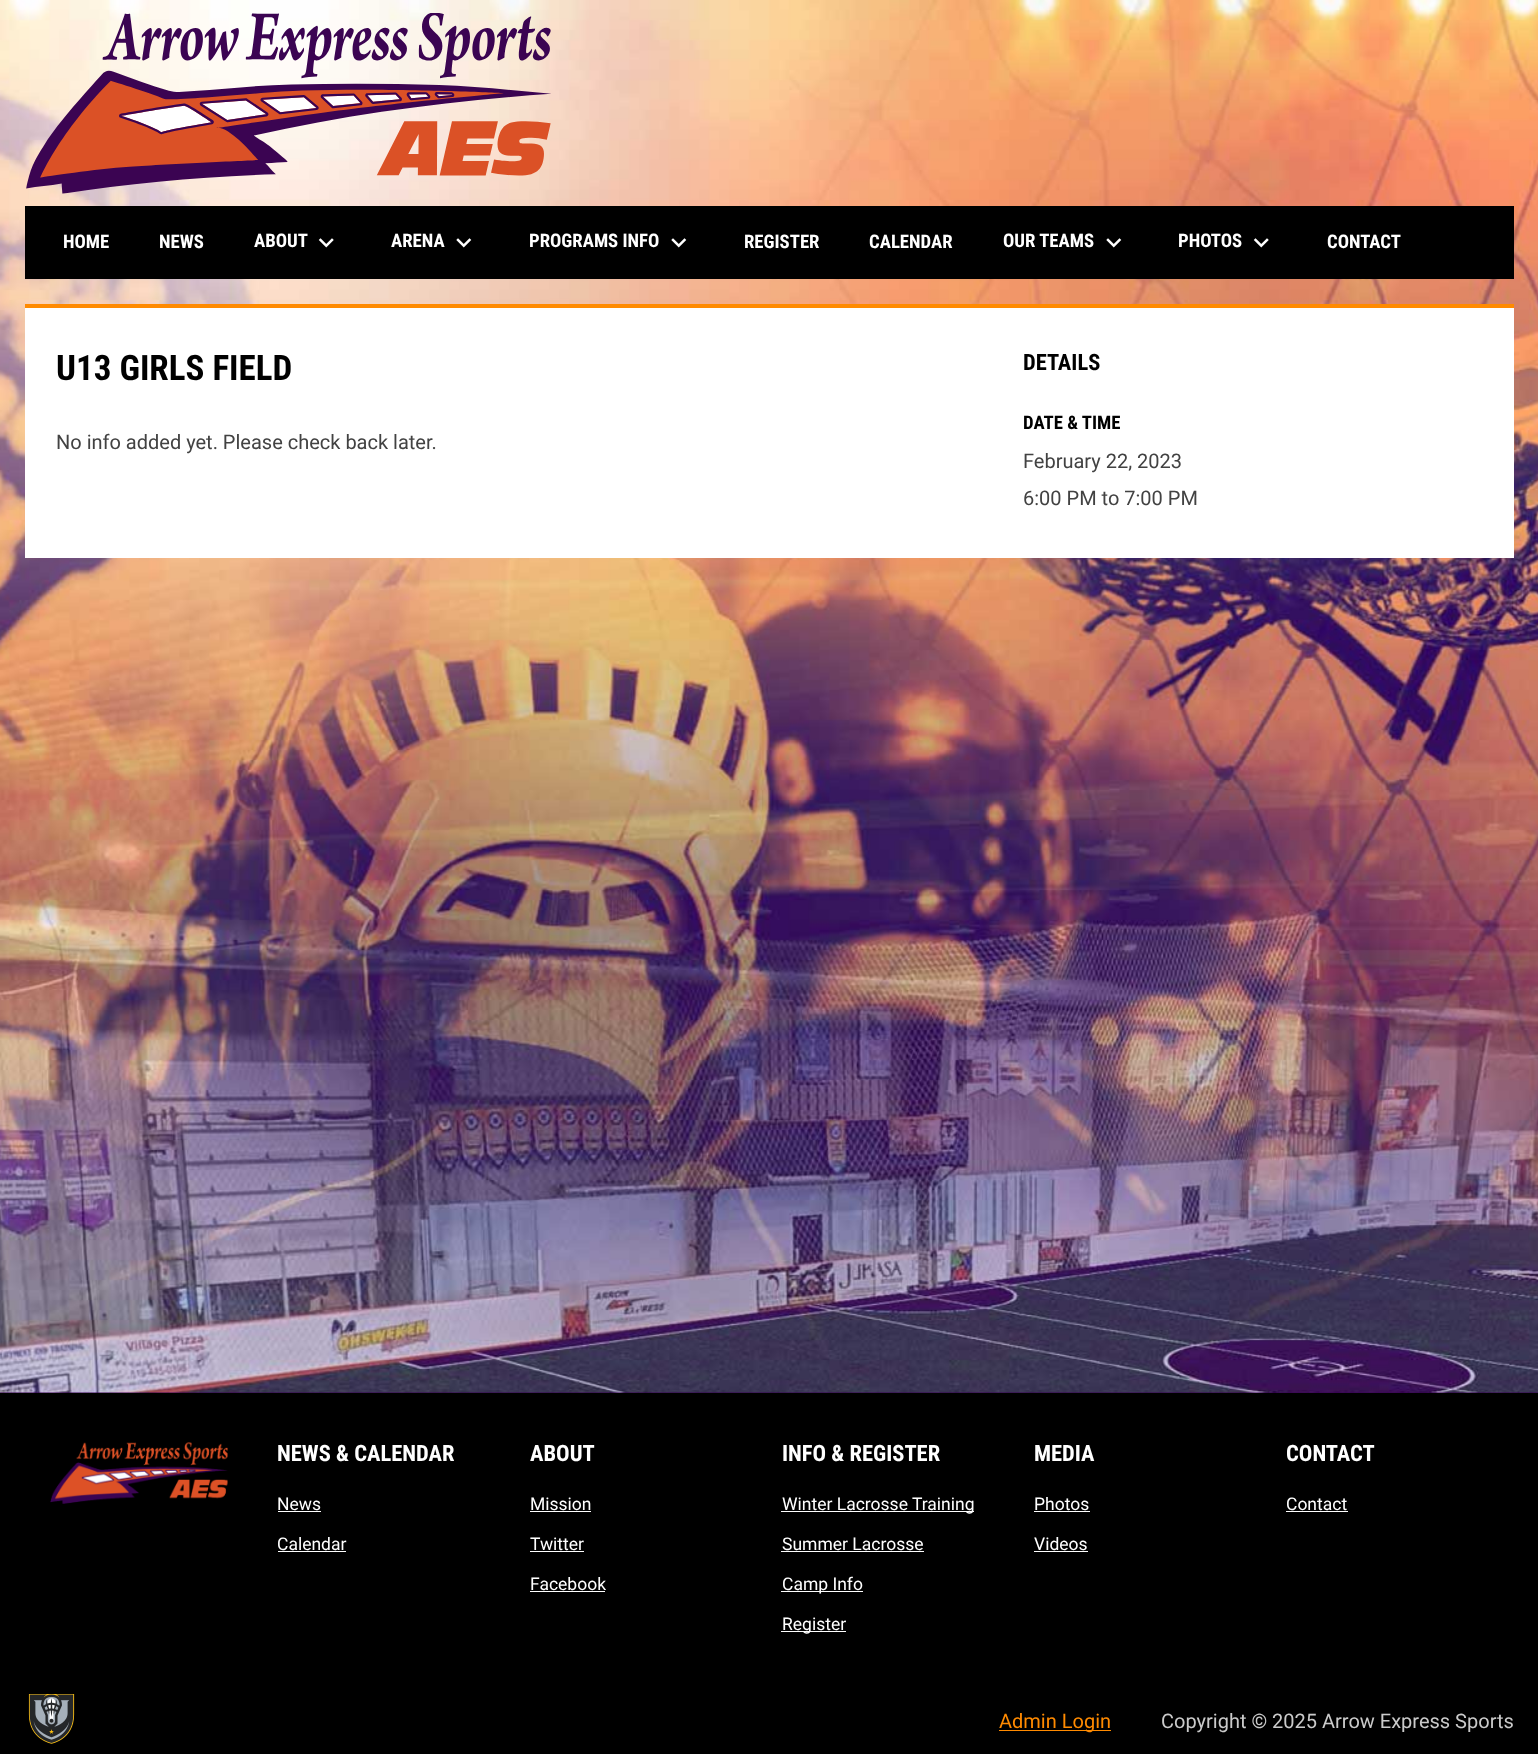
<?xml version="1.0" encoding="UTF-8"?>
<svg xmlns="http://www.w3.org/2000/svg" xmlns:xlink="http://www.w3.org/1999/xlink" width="1538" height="1754">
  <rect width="100%" height="100%" fill="#3b0554" />
  <image x="0" y="0" width="1538" height="1393" xlink:href="image1.png" />
  <image x="26" y="13" width="525" height="181" xlink:href="image2.png" />
  <rect x="25" y="206" width="1489" height="73" fill="#000000" />
  <image x="318" y="238" width="16" height="10" xlink:href="image3.png" />
  <image x="456" y="238" width="16" height="10" xlink:href="image4.png" />
  <image x="671" y="238" width="16" height="10" xlink:href="image4.png" />
  <image x="1106" y="238" width="16" height="10" xlink:href="image4.png" />
  <image x="1253" y="238" width="16" height="10" xlink:href="image3.png" />
  <rect x="25" y="308" width="1489" height="250" fill="#ffffff" />
  <rect x="25" y="304" width="1489" height="4" fill="#ff8a00" />
  <rect y="1393" width="1538" height="361" fill="#000000" />
  <image x="50" y="1442" width="178" height="62" xlink:href="image5.png" />
  <rect x="278" y="1511" width="43" height="1" fill="#ffffff" />
  <rect x="278" y="1551" width="68" height="1" fill="#ffffff" />
  <rect x="530" y="1511" width="61" height="1" fill="#ffffff" />
  <rect x="530" y="1551" width="54" height="1" fill="#ffffff" />
  <rect x="530" y="1591" width="75" height="1" fill="#ffffff" />
  <rect x="781" y="1511" width="193" height="1" fill="#ffffff" />
  <rect x="781" y="1551" width="143" height="1" fill="#ffffff" />
  <rect x="781" y="1591" width="82" height="1" fill="#ffffff" />
  <rect x="781" y="1631" width="65" height="1" fill="#ffffff" />
  <rect x="1034" y="1511" width="56" height="1" fill="#ffffff" />
  <rect x="1034" y="1551" width="54" height="1" fill="#ffffff" />
  <rect x="1286" y="1511" width="62" height="1" fill="#ffffff" />
  <image x="28" y="1694" width="47" height="50" xlink:href="image6.png" />
  <rect x="999" y="1730" width="112" height="1" fill="#ff8a00" />
  <text x="63" y="248" style="font-family: Roboto Condensed; font-size: 18.75px; font-weight: bold; fill: #ffffff">HOME</text>
  <text x="159" y="248" style="font-family: Roboto Condensed; font-size: 18.75px; font-weight: bold; fill: #ffffff">NEWS</text>
  <text x="254" y="247" style="font-family: Roboto Condensed; font-size: 18.75px; font-weight: bold; fill: #ffffff">ABOUT</text>
  <text x="391" y="247" style="font-family: Roboto Condensed; font-size: 18.75px; font-weight: bold; fill: #ffffff">ARENA</text>
  <text x="529" y="247" style="font-family: Roboto Condensed; font-size: 18.75px; font-weight: bold; fill: #ffffff">PROGRAMS INFO</text>
  <text x="744" y="248" style="font-family: Roboto Condensed; font-size: 18.75px; font-weight: bold; fill: #ffffff">REGISTER</text>
  <text x="869" y="248" style="font-family: Roboto Condensed; font-size: 18.75px; font-weight: bold; fill: #ffffff">CALENDAR</text>
  <text x="1003" y="247" style="font-family: Roboto Condensed; font-size: 18.75px; font-weight: bold; fill: #ffffff">OUR TEAMS</text>
  <text x="1178" y="247" style="font-family: Roboto Condensed; font-size: 18.75px; font-weight: bold; fill: #ffffff">PHOTOS</text>
  <text x="1327" y="248" style="font-family: Roboto Condensed; font-size: 18.75px; font-weight: bold; fill: #ffffff">CONTACT</text>
  <text x="56" y="380" style="font-family: Roboto Condensed; font-size: 35px; font-weight: bold; fill: #000000">U13 GIRLS FIELD</text>
  <text x="56" y="449" style="font-family: Roboto; font-size: 20px; fill: #424242">No info added yet. Please check back later.</text>
  <text x="1023" y="370" style="font-family: Roboto Condensed; font-size: 22.5px; font-weight: bold; fill: #000000">DETAILS</text>
  <text x="1023" y="429" style="font-family: Roboto Condensed; font-size: 18.75px; font-weight: bold; fill: #000000">DATE &amp; TIME</text>
  <text x="1023" y="468" style="font-family: Roboto; font-size: 20px; fill: #424242">February 22, 2023</text>
  <text x="1023" y="505" style="font-family: Roboto; font-size: 20px; fill: #424242">6:00 PM to 7:00 PM</text>
  <text x="277" y="1461" style="font-family: Roboto Condensed; font-size: 22.5px; font-weight: bold; fill: #ffffff">NEWS &amp; CALENDAR</text>
  <text x="277" y="1510" style="font-family: Roboto; font-size: 17.5px; fill: #ffffff">News</text>
  <text x="277" y="1550" style="font-family: Roboto; font-size: 17.5px; fill: #ffffff">Calendar</text>
  <text x="530" y="1461" style="font-family: Roboto Condensed; font-size: 22.5px; font-weight: bold; fill: #ffffff">ABOUT</text>
  <text x="530" y="1510" style="font-family: Roboto; font-size: 17.5px; fill: #ffffff">Mission</text>
  <text x="530" y="1550" style="font-family: Roboto; font-size: 17.5px; fill: #ffffff">Twitter</text>
  <text x="530" y="1590" style="font-family: Roboto; font-size: 17.5px; fill: #ffffff">Facebook</text>
  <text x="782" y="1461" style="font-family: Roboto Condensed; font-size: 22.5px; font-weight: bold; fill: #ffffff">INFO &amp; REGISTER</text>
  <text x="782" y="1510" style="font-family: Roboto; font-size: 17.5px; fill: #ffffff">Winter Lacrosse Training</text>
  <text x="782" y="1550" style="font-family: Roboto; font-size: 17.5px; fill: #ffffff">Summer Lacrosse</text>
  <text x="782" y="1590" style="font-family: Roboto; font-size: 17.5px; fill: #ffffff">Camp Info</text>
  <text x="782" y="1630" style="font-family: Roboto; font-size: 17.5px; fill: #ffffff">Register</text>
  <text x="1034" y="1461" style="font-family: Roboto Condensed; font-size: 22.5px; font-weight: bold; fill: #ffffff">MEDIA</text>
  <text x="1034" y="1510" style="font-family: Roboto; font-size: 17.5px; fill: #ffffff">Photos</text>
  <text x="1034" y="1550" style="font-family: Roboto; font-size: 17.5px; fill: #ffffff">Videos</text>
  <text x="1286" y="1461" style="font-family: Roboto Condensed; font-size: 22.5px; font-weight: bold; fill: #ffffff">CONTACT</text>
  <text x="1286" y="1510" style="font-family: Roboto; font-size: 17.5px; fill: #ffffff">Contact</text>
  <text x="999" y="1728" style="font-family: Roboto; font-size: 20px; fill: #ff8a00">Admin Login</text>
  <text x="1161" y="1728" style="font-family: Roboto; font-size: 20px; fill: #cacaca">Copyright © 2025 Arrow Express Sports</text>
</svg>
